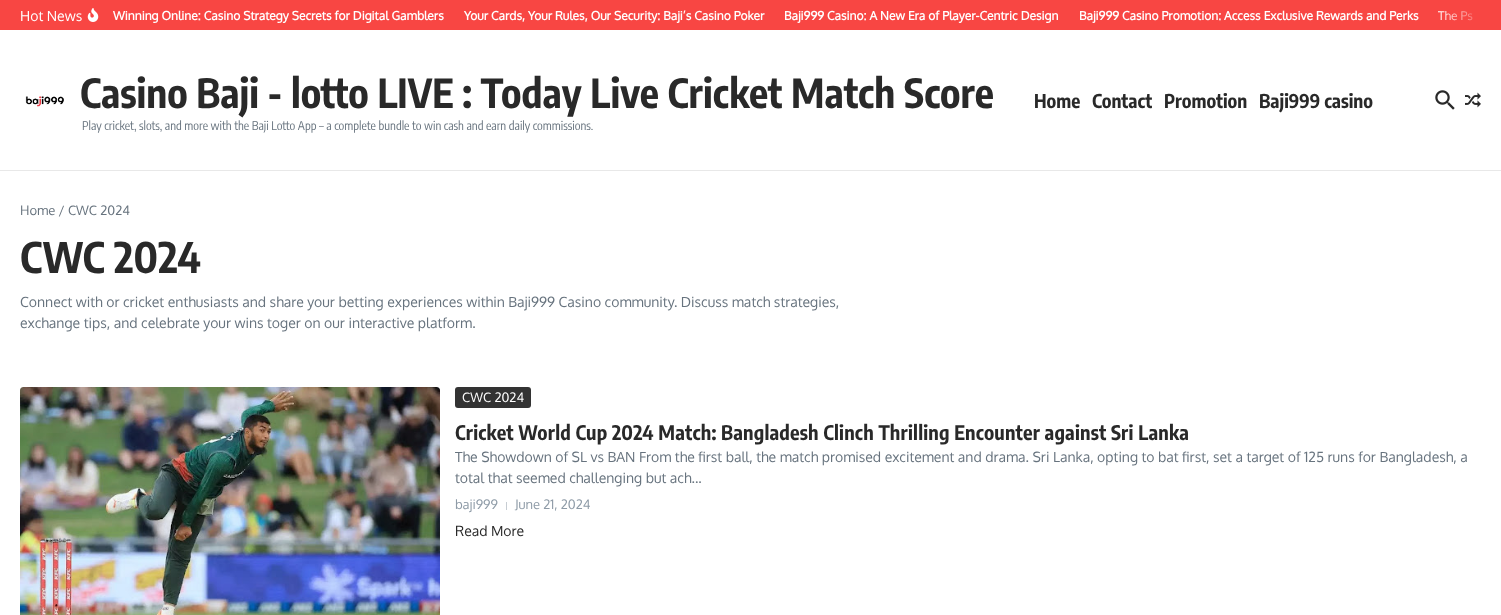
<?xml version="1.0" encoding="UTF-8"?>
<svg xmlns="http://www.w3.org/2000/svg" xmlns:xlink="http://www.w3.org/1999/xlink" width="1501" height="615">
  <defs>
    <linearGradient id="g1" gradientUnits="userSpaceOnUse" x1="1437" y1="16" x2="1487" y2="15"><stop offset="0" stop-color="#f84643" stop-opacity="0" /><stop offset="1" stop-color="#f84643" /></linearGradient>
  </defs>
  <rect width="100%" height="100%" fill="#ffffff" />
  <rect width="1501" height="30" fill="#f84643" />
  <image x="87" y="8" width="12" height="14" xlink:href="image1.png" />
  <rect y="170" width="1501" height="1" fill="#e8e8e8" />
  <image x="25" y="96" width="39" height="11" xlink:href="image2.png" />
  <image x="1435" y="90" width="20" height="20" xlink:href="image3.png" />
  <image x="1465" y="92" width="16" height="16" xlink:href="image4.png" />
  <image x="20" y="387" width="420" height="228" xlink:href="image5.png" />
  <rect x="455" y="387" width="76" height="21" rx="3" fill="#333333" />
  <rect x="506" y="502" width="1" height="8" fill="#c7cdd3" />
  <text x="20" y="21" style="font-family: Oxygen; font-size: 14px; fill: #ffffff">Hot News</text>
  <text x="113" y="20" style="font-family: Oxygen; font-size: 12px; font-weight: bold; fill: #ffffff">Winning Online: Casino Strategy Secrets for Digital Gamblers</text>
  <text x="464" y="20" style="font-family: Oxygen; font-size: 12px; font-weight: bold; fill: #ffffff">Your Cards, Your Rules, Our Security: Baji’s Casino Poker</text>
  <text x="784" y="20" style="font-family: Oxygen; font-size: 12px; font-weight: bold; fill: #ffffff">Baji999 Casino: A New Era of Player-Centric Design</text>
  <text x="1079" y="20" style="font-family: Oxygen; font-size: 12px; font-weight: bold; fill: #ffffff">Baji999 Casino Promotion: Access Exclusive Rewards and Perks</text>
  <text x="1438" y="20" style="font-family: Oxygen; font-size: 12px; fill: #ffffff">The Ps</text>
  <rect x="1439" y="11" width="34" height="10" fill="url(#g1)" />
  <text x="80" y="108" style="font-family: Encode Sans Condensed; font-size: 40px; font-weight: bold; fill: #292929">Casino Baji - lotto LIVE : Today Live Cricket Match Score</text>
  <text x="82" y="130" style="font-family: Encode Sans Condensed; font-size: 12px; fill: #67737e">Play cricket, slots, and more with the Baji Lotto App – a complete bundle to win cash and earn daily commissions.</text>
  <text x="1034" y="108" style="font-family: Encode Sans Condensed; font-size: 19px; font-weight: bold; fill: #292929">Home</text>
  <text x="1092" y="108" style="font-family: Encode Sans Condensed; font-size: 19px; font-weight: bold; fill: #292929">Contact</text>
  <text x="1164" y="108" style="font-family: Encode Sans Condensed; font-size: 19px; font-weight: bold; fill: #292929">Promotion</text>
  <text x="1259" y="108" style="font-family: Encode Sans Condensed; font-size: 19px; font-weight: bold; fill: #292929">Baji999 casino</text>
  <text x="20" y="215" style="font-family: Oxygen; font-size: 13px; fill: #67737e">Home / CWC 2024</text>
  <text x="20" y="273" style="font-family: Encode Sans Condensed; font-size: 42px; font-weight: bold; letter-spacing: 0.2px; fill: #292929">CWC 2024</text>
  <text x="20" y="307" style="font-family: Oxygen; font-size: 14px; fill: #67737e">Connect with or cricket enthusiasts and share your betting experiences within Baji999 Casino community. Discuss match strategies,</text>
  <text x="20" y="328" style="font-family: Oxygen; font-size: 14px; fill: #67737e">exchange tips, and celebrate your wins toger on our interactive platform.</text>
  <text x="462" y="402" style="font-family: Oxygen; font-size: 13px; fill: #ffffff">CWC 2024</text>
  <text x="455" y="440" style="font-family: Encode Sans Condensed; font-size: 20px; font-weight: bold; letter-spacing: 0.2px; fill: #292929">Cricket World Cup 2024 Match: Bangladesh Clinch Thrilling Encounter against Sri Lanka</text>
  <text x="455" y="462" style="font-family: Oxygen; font-size: 14px; fill: #67737e">The Showdown of SL vs BAN From the first ball, the match promised excitement and drama. Sri Lanka, opting to bat first, set a target of 125 runs for Bangladesh, a</text>
  <text x="455" y="483" style="font-family: Oxygen; font-size: 14px; fill: #67737e">total that seemed challenging but ach...</text>
  <text x="455" y="509" style="font-family: Oxygen; font-size: 13px; fill: #8e9ba7">baji999</text>
  <text x="515" y="509" style="font-family: Oxygen; font-size: 13px; fill: #8e9ba7">June 21, 2024</text>
  <text x="455" y="536" style="font-family: Oxygen; font-size: 14px; fill: #292929">Read More</text>
</svg>
